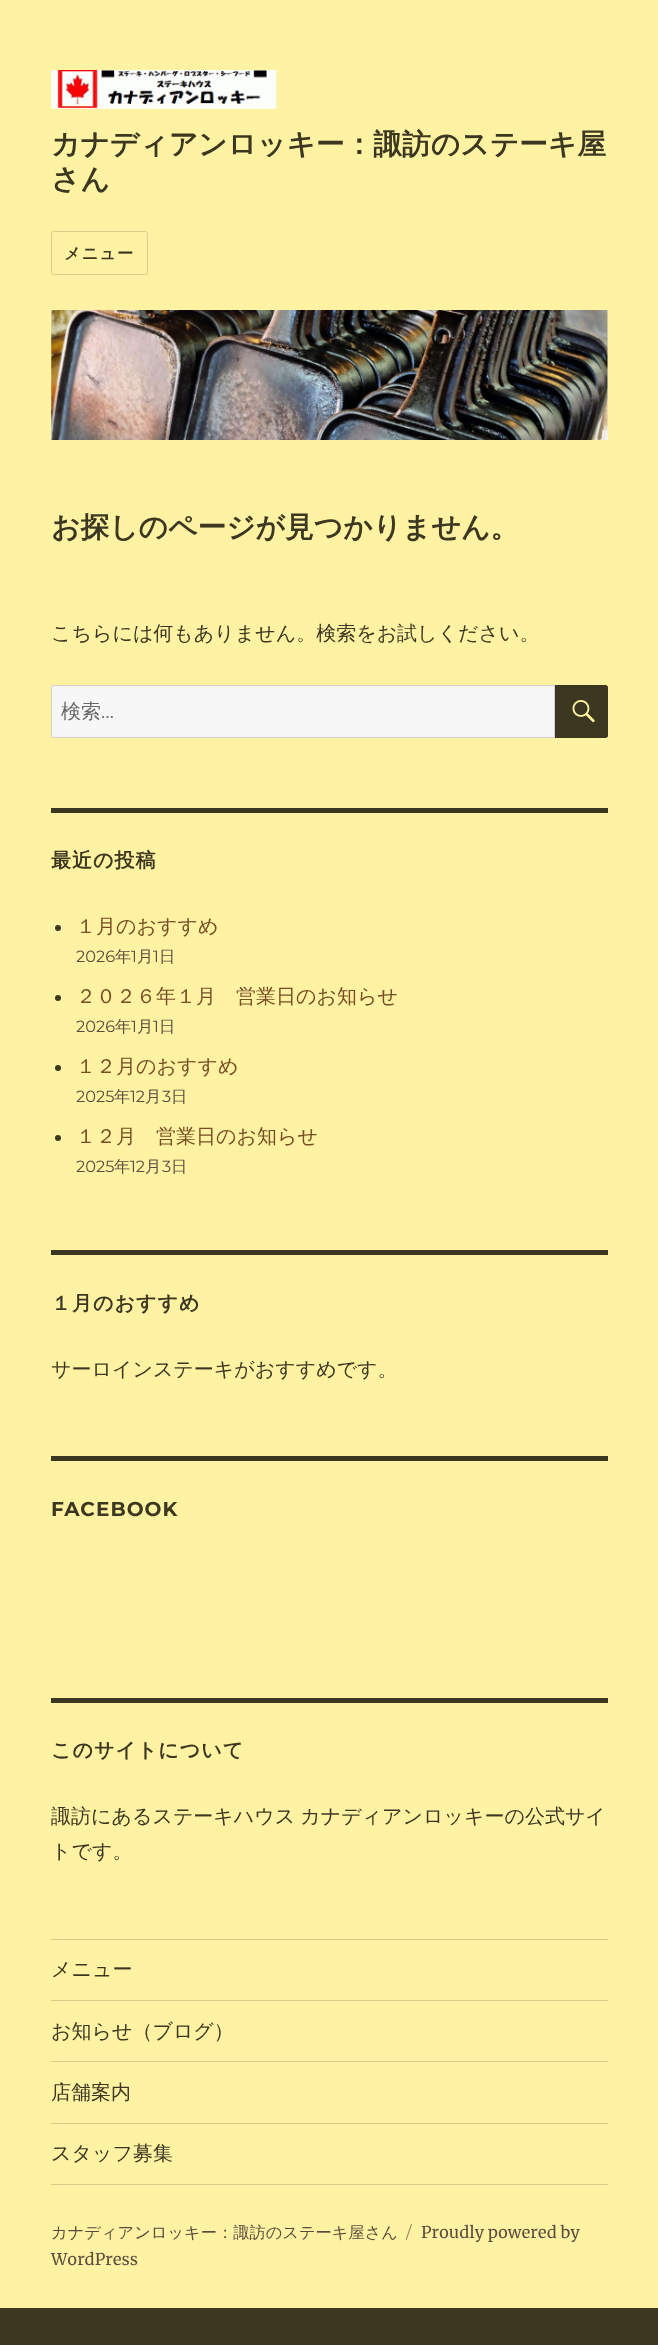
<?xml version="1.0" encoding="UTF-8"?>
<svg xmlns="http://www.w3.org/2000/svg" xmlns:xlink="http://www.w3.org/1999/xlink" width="658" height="2345">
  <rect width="100%" height="100%" fill="#3b3721" />
  <rect width="658" height="2308" fill="#fff2a3" />
  <image x="51" y="70" width="226" height="39" xlink:href="image1.png" />
  <rect x="51.5" y="231.5" width="96" height="43" rx="2" fill="none" stroke="#d8cd89" />
  <image x="51" y="310" width="557" height="130" xlink:href="image2.png" />
  <path d="M 53.5 685 h 501.5 v 53 h -501.5 c -1.5 0 -2.5 -1 -2.5 -2.5 v -48 c 0 -1.5 1 -2.5 2.5 -2.5 z" fill="#f7f7f7" />
  <path d="M 53.5 685.5 h 501 v 52 h -501 c -1 0 -2 -1 -2 -2 v -48 c 0 -1 1 -2 2 -2 z" fill="none" stroke="#3b3721" stroke-opacity="0.2" />
  <path d="M 555 685 h 50.5 c 1.5 0 2.5 1 2.5 2.5 v 48 c 0 1.5 -1 2.5 -2.5 2.5 h -50.5 z" fill="#3b3721" />
  <image x="572" y="700" width="23" height="23" xlink:href="image3.png" />
  <rect x="51" y="808" width="557" height="5" fill="#3b3721" />
  <circle cx="58" cy="928" r="3" fill="#3b3721" />
  <circle cx="58" cy="998" r="3" fill="#3b3721" />
  <circle cx="58" cy="1068" r="3" fill="#3b3721" />
  <circle cx="58" cy="1138" r="3" fill="#3b3721" />
  <rect x="51" y="1250" width="557" height="5" fill="#3b3721" />
  <rect x="51" y="1456" width="557" height="5" fill="#3b3721" />
  <rect x="51" y="1698" width="557" height="5" fill="#3b3721" />
  <rect x="51" y="2184" width="557" height="1" fill="#d8cd89" />
  <rect x="51" y="1939" width="557" height="1" fill="#d8cd89" />
  <rect x="51" y="2000" width="557" height="1" fill="#d8cd89" />
  <rect x="51" y="2061" width="557" height="1" fill="#d8cd89" />
  <rect x="51" y="2123" width="557" height="1" fill="#d8cd89" />
  <text x="51" y="154" style="font-family: WenQuanYi Zen Hei; font-size: 28.75px; font-weight: bold; fill: #3b3721">カナディアンロッキー：諏訪のステーキ屋</text>
  <text x="51" y="189" style="font-family: WenQuanYi Zen Hei; font-size: 28.75px; font-weight: bold; fill: #3b3721">さん</text>
  <text x="64" y="259" style="font-family: WenQuanYi Zen Hei; font-size: 16.25px; font-weight: bold; letter-spacing: 1px; fill: #3b3721">メニュー</text>
  <text x="51" y="537" style="font-family: WenQuanYi Zen Hei; font-size: 28.75px; font-weight: bold; fill: #3b3721">お探しのページが見つかりません。</text>
  <text x="51" y="640" style="font-family: WenQuanYi Zen Hei; font-size: 20px; font-weight: 500; fill: #3b3721">こちらには何もありません。検索をお試しください。</text>
  <text x="61" y="718" style="font-family: WenQuanYi Zen Hei; font-size: 20px; font-weight: 500; fill: #686868">検索</text>
  <text x="101" y="718" style="font-family: Montserrat; font-size: 20px; font-weight: 100; fill: #686868">…</text>
  <text x="51" y="867" style="font-family: WenQuanYi Zen Hei; font-size: 20px; font-weight: bold; letter-spacing: 1px; fill: #3b3721">最近の投稿</text>
  <text x="76" y="933" style="font-family: WenQuanYi Zen Hei; font-size: 20px; font-weight: 500; fill: #774e24">１月のおすすめ</text>
  <text x="76" y="962" style="font-family: Montserrat; font-size: 16.25px; font-weight: 100; fill: #5b4d3e">2026</text>
  <text x="115" y="962" style="font-family: WenQuanYi Zen Hei; font-size: 16.25px; font-weight: 500; fill: #5b4d3e">年</text>
  <text x="131" y="962" style="font-family: Montserrat; font-size: 16.25px; font-weight: 100; fill: #5b4d3e">1</text>
  <text x="137" y="962" style="font-family: WenQuanYi Zen Hei; font-size: 16.25px; font-weight: 500; fill: #5b4d3e">月</text>
  <text x="153" y="962" style="font-family: Montserrat; font-size: 16.25px; font-weight: 100; fill: #5b4d3e">1</text>
  <text x="159" y="962" style="font-family: WenQuanYi Zen Hei; font-size: 16.25px; font-weight: 500; fill: #5b4d3e">日</text>
  <text x="76" y="1003" style="font-family: WenQuanYi Zen Hei; font-size: 20px; font-weight: 500; fill: #774e24">２０２６年１月　営業日のお知らせ</text>
  <text x="76" y="1032" style="font-family: Montserrat; font-size: 16.25px; font-weight: 100; fill: #5b4d3e">2026</text>
  <text x="115" y="1032" style="font-family: WenQuanYi Zen Hei; font-size: 16.25px; font-weight: 500; fill: #5b4d3e">年</text>
  <text x="131" y="1032" style="font-family: Montserrat; font-size: 16.25px; font-weight: 100; fill: #5b4d3e">1</text>
  <text x="137" y="1032" style="font-family: WenQuanYi Zen Hei; font-size: 16.25px; font-weight: 500; fill: #5b4d3e">月</text>
  <text x="153" y="1032" style="font-family: Montserrat; font-size: 16.25px; font-weight: 100; fill: #5b4d3e">1</text>
  <text x="159" y="1032" style="font-family: WenQuanYi Zen Hei; font-size: 16.25px; font-weight: 500; fill: #5b4d3e">日</text>
  <text x="76" y="1073" style="font-family: WenQuanYi Zen Hei; font-size: 20px; font-weight: 500; fill: #774e24">１２月のおすすめ</text>
  <text x="76" y="1102" style="font-family: Montserrat; font-size: 16.25px; font-weight: 100; fill: #5b4d3e">2025</text>
  <text x="114" y="1102" style="font-family: WenQuanYi Zen Hei; font-size: 16.25px; font-weight: 500; fill: #5b4d3e">年</text>
  <text x="130" y="1102" style="font-family: Montserrat; font-size: 16.25px; font-weight: 100; fill: #5b4d3e">12</text>
  <text x="145" y="1102" style="font-family: WenQuanYi Zen Hei; font-size: 16.25px; font-weight: 500; fill: #5b4d3e">月</text>
  <text x="162" y="1102" style="font-family: Montserrat; font-size: 16.25px; font-weight: 100; fill: #5b4d3e">3</text>
  <text x="171" y="1102" style="font-family: WenQuanYi Zen Hei; font-size: 16.25px; font-weight: 500; fill: #5b4d3e">日</text>
  <text x="76" y="1143" style="font-family: WenQuanYi Zen Hei; font-size: 20px; font-weight: 500; fill: #774e24">１２月　営業日のお知らせ</text>
  <text x="76" y="1172" style="font-family: Montserrat; font-size: 16.25px; font-weight: 100; fill: #5b4d3e">2025</text>
  <text x="114" y="1172" style="font-family: WenQuanYi Zen Hei; font-size: 16.25px; font-weight: 500; fill: #5b4d3e">年</text>
  <text x="130" y="1172" style="font-family: Montserrat; font-size: 16.25px; font-weight: 100; fill: #5b4d3e">12</text>
  <text x="145" y="1172" style="font-family: WenQuanYi Zen Hei; font-size: 16.25px; font-weight: 500; fill: #5b4d3e">月</text>
  <text x="162" y="1172" style="font-family: Montserrat; font-size: 16.25px; font-weight: 100; fill: #5b4d3e">3</text>
  <text x="171" y="1172" style="font-family: WenQuanYi Zen Hei; font-size: 16.25px; font-weight: 500; fill: #5b4d3e">日</text>
  <text x="51" y="1310" style="font-family: WenQuanYi Zen Hei; font-size: 20px; font-weight: bold; letter-spacing: 1px; fill: #3b3721">１月のおすすめ</text>
  <text x="51" y="1376" style="font-family: WenQuanYi Zen Hei; font-size: 20px; font-weight: 500; fill: #3b3721">サーロインステーキがおすすめです。</text>
  <text x="51" y="1516" style="font-family: 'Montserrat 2'; font-size: 20px; font-weight: 100; letter-spacing: 1px; fill: #3b3721">FACEBOOK</text>
  <text x="51" y="1757" style="font-family: WenQuanYi Zen Hei; font-size: 20px; font-weight: bold; letter-spacing: 1px; fill: #3b3721">このサイトについて</text>
  <text x="51" y="1823" word-spacing="-1" style="font-family: WenQuanYi Zen Hei; font-size: 20px; font-weight: 500; fill: #3b3721">諏訪にあるステーキハウス カナディアンロッキーの公式サイ</text>
  <text x="51" y="1858" style="font-family: WenQuanYi Zen Hei; font-size: 20px; font-weight: 500; fill: #3b3721">トです。</text>
  <text x="51" y="1976" style="font-family: WenQuanYi Zen Hei; font-size: 20px; font-weight: 500; fill: #3b3721">メニュー</text>
  <text x="51" y="2038" style="font-family: WenQuanYi Zen Hei; font-size: 20px; font-weight: 500; fill: #3b3721">お知らせ（ブログ）</text>
  <text x="51" y="2099" style="font-family: WenQuanYi Zen Hei; font-size: 20px; font-weight: 500; fill: #3b3721">店舗案内</text>
  <text x="51" y="2160" style="font-family: WenQuanYi Zen Hei; font-size: 20px; font-weight: 500; fill: #3b3721">スタッフ募集</text>
  <text x="51" y="2238" style="font-family: WenQuanYi Zen Hei; font-size: 16.25px; font-weight: 500; fill: #5b4d3e">カナディアンロッキー：諏訪のステーキ屋さん</text>
  <text x="406" y="2238" style="font-family: Montserrat; font-size: 16.25px; font-weight: 100; fill: #8c7f5c">/</text>
  <text x="421" y="2238" style="font-family: Merriweather; font-size: 16.25px; fill: #5b4d3e">Proudly powered by</text>
  <text x="51" y="2265" style="font-family: Merriweather; font-size: 16.25px; fill: #5b4d3e">WordPress</text>
</svg>
